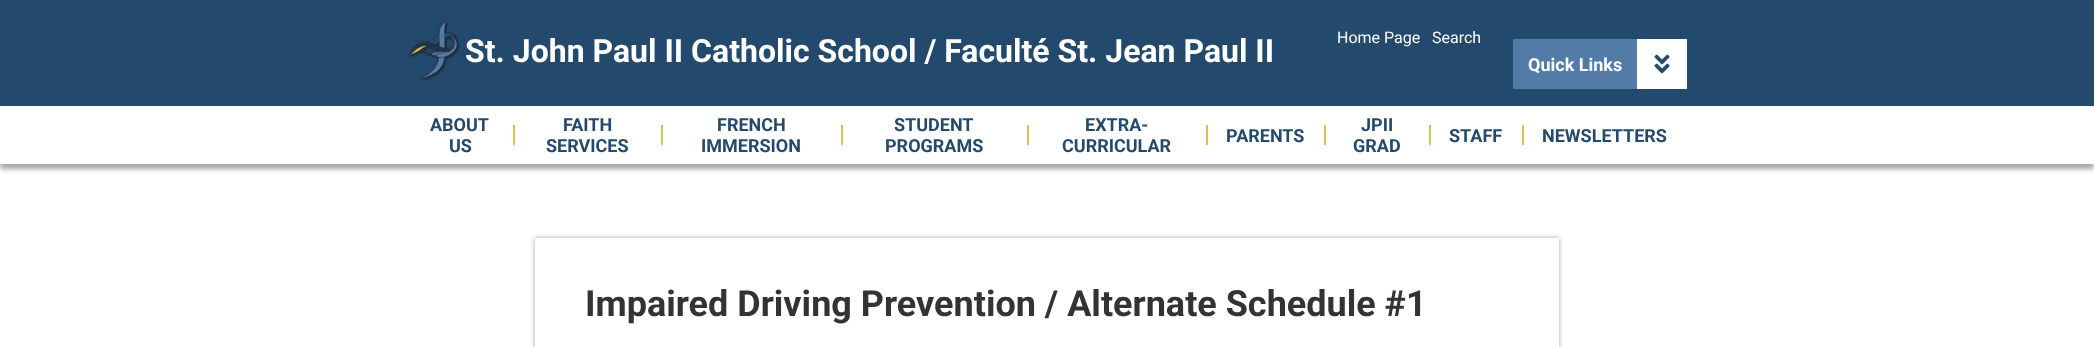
<?xml version="1.0" encoding="UTF-8"?>
<svg xmlns="http://www.w3.org/2000/svg" xmlns:xlink="http://www.w3.org/1999/xlink" width="2094" height="347">
  <defs>
    <clipPath id="clip1"><path d="M 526 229 h 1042 v 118 h -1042 z m 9 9 h 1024 v 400 h -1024 z" clip-rule="evenodd" /></clipPath>
  </defs>
  <rect width="100%" height="100%" fill="#ffffff" />
  <rect y="5" width="2094" height="164" fill="#000000" fill-opacity="0.35" filter="blur(2.5px)" />
  <rect width="2094" height="106" fill="#234a6c" />
  <image x="408" y="21" width="52" height="60" xlink:href="image1.png" />
  <rect y="106" width="2094" height="58" fill="#ffffff" />
  <rect x="1513" y="39" width="124" height="50" fill="#527ba8" />
  <rect x="1637" y="39" width="50" height="50" fill="#ffffff" />
  <image x="1654" y="54" width="16" height="20" xlink:href="image2.png" />
  <rect x="513" y="125" width="2" height="20" fill="#d8c14f" />
  <rect x="661" y="125" width="2" height="20" fill="#d8c14f" />
  <rect x="841" y="125" width="2" height="20" fill="#d8c14f" />
  <rect x="1027" y="125" width="2" height="20" fill="#d8c14f" />
  <rect x="1206" y="125" width="2" height="20" fill="#d8c14f" />
  <rect x="1324" y="125" width="2" height="20" fill="#d8c14f" />
  <rect x="1429" y="125" width="2" height="20" fill="#d8c14f" />
  <rect x="1522" y="125" width="2" height="20" fill="#d8c14f" />
  <g clip-path="url(#clip1)">
    <rect x="535" y="238" width="1024" height="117" fill="#000000" fill-opacity="0.35" filter="blur(2.5px)" />
  </g>
  <text x="465" y="62" style="font-family: Roboto; font-size: 32px; font-weight: bold; fill: #ffffff">St. John Paul II Catholic School / Faculté St. Jean Paul II</text>
  <text x="1337" y="43" style="font-family: Roboto; font-size: 16px; fill: #ffffff">Home Page</text>
  <text x="1432" y="43" style="font-family: Roboto; font-size: 16px; fill: #ffffff">Search</text>
  <text x="1528" y="71" style="font-family: Roboto; font-size: 18px; font-weight: bold; fill: #ffffff">Quick Links</text>
  <text x="430" y="131" style="font-family: Roboto; font-size: 18px; font-weight: bold; fill: #234a6c">ABOUT</text>
  <text x="449" y="152" style="font-family: Roboto; font-size: 18px; font-weight: bold; fill: #234a6c">US</text>
  <text x="563" y="131" style="font-family: Roboto; font-size: 18px; font-weight: bold; fill: #234a6c">FAITH</text>
  <text x="546" y="152" style="font-family: Roboto; font-size: 18px; font-weight: bold; fill: #234a6c">SERVICES</text>
  <text x="717" y="131" style="font-family: Roboto; font-size: 18px; font-weight: bold; fill: #234a6c">FRENCH</text>
  <text x="701" y="152" style="font-family: Roboto; font-size: 18px; font-weight: bold; fill: #234a6c">IMMERSION</text>
  <text x="894" y="131" style="font-family: Roboto; font-size: 18px; font-weight: bold; fill: #234a6c">STUDENT</text>
  <text x="885" y="152" style="font-family: Roboto; font-size: 18px; font-weight: bold; fill: #234a6c">PROGRAMS</text>
  <text x="1085" y="131" style="font-family: Roboto; font-size: 18px; font-weight: bold; fill: #234a6c">EXTRA-</text>
  <text x="1062" y="152" style="font-family: Roboto; font-size: 18px; font-weight: bold; fill: #234a6c">CURRICULAR</text>
  <text x="1226" y="142" style="font-family: Roboto; font-size: 18px; font-weight: bold; fill: #234a6c">PARENTS</text>
  <text x="1361" y="131" style="font-family: Roboto; font-size: 18px; font-weight: bold; fill: #234a6c">JPII</text>
  <text x="1353" y="152" style="font-family: Roboto; font-size: 18px; font-weight: bold; fill: #234a6c">GRAD</text>
  <text x="1449" y="142" style="font-family: Roboto; font-size: 18px; font-weight: bold; fill: #234a6c">STAFF</text>
  <text x="1542" y="142" style="font-family: Roboto; font-size: 18px; font-weight: bold; fill: #234a6c">NEWSLETTERS</text>
  <text x="585" y="316" style="font-family: Roboto; font-size: 36px; font-weight: bold; fill: #333333">Impaired Driving Prevention / Alternate Schedule #1</text>
</svg>
